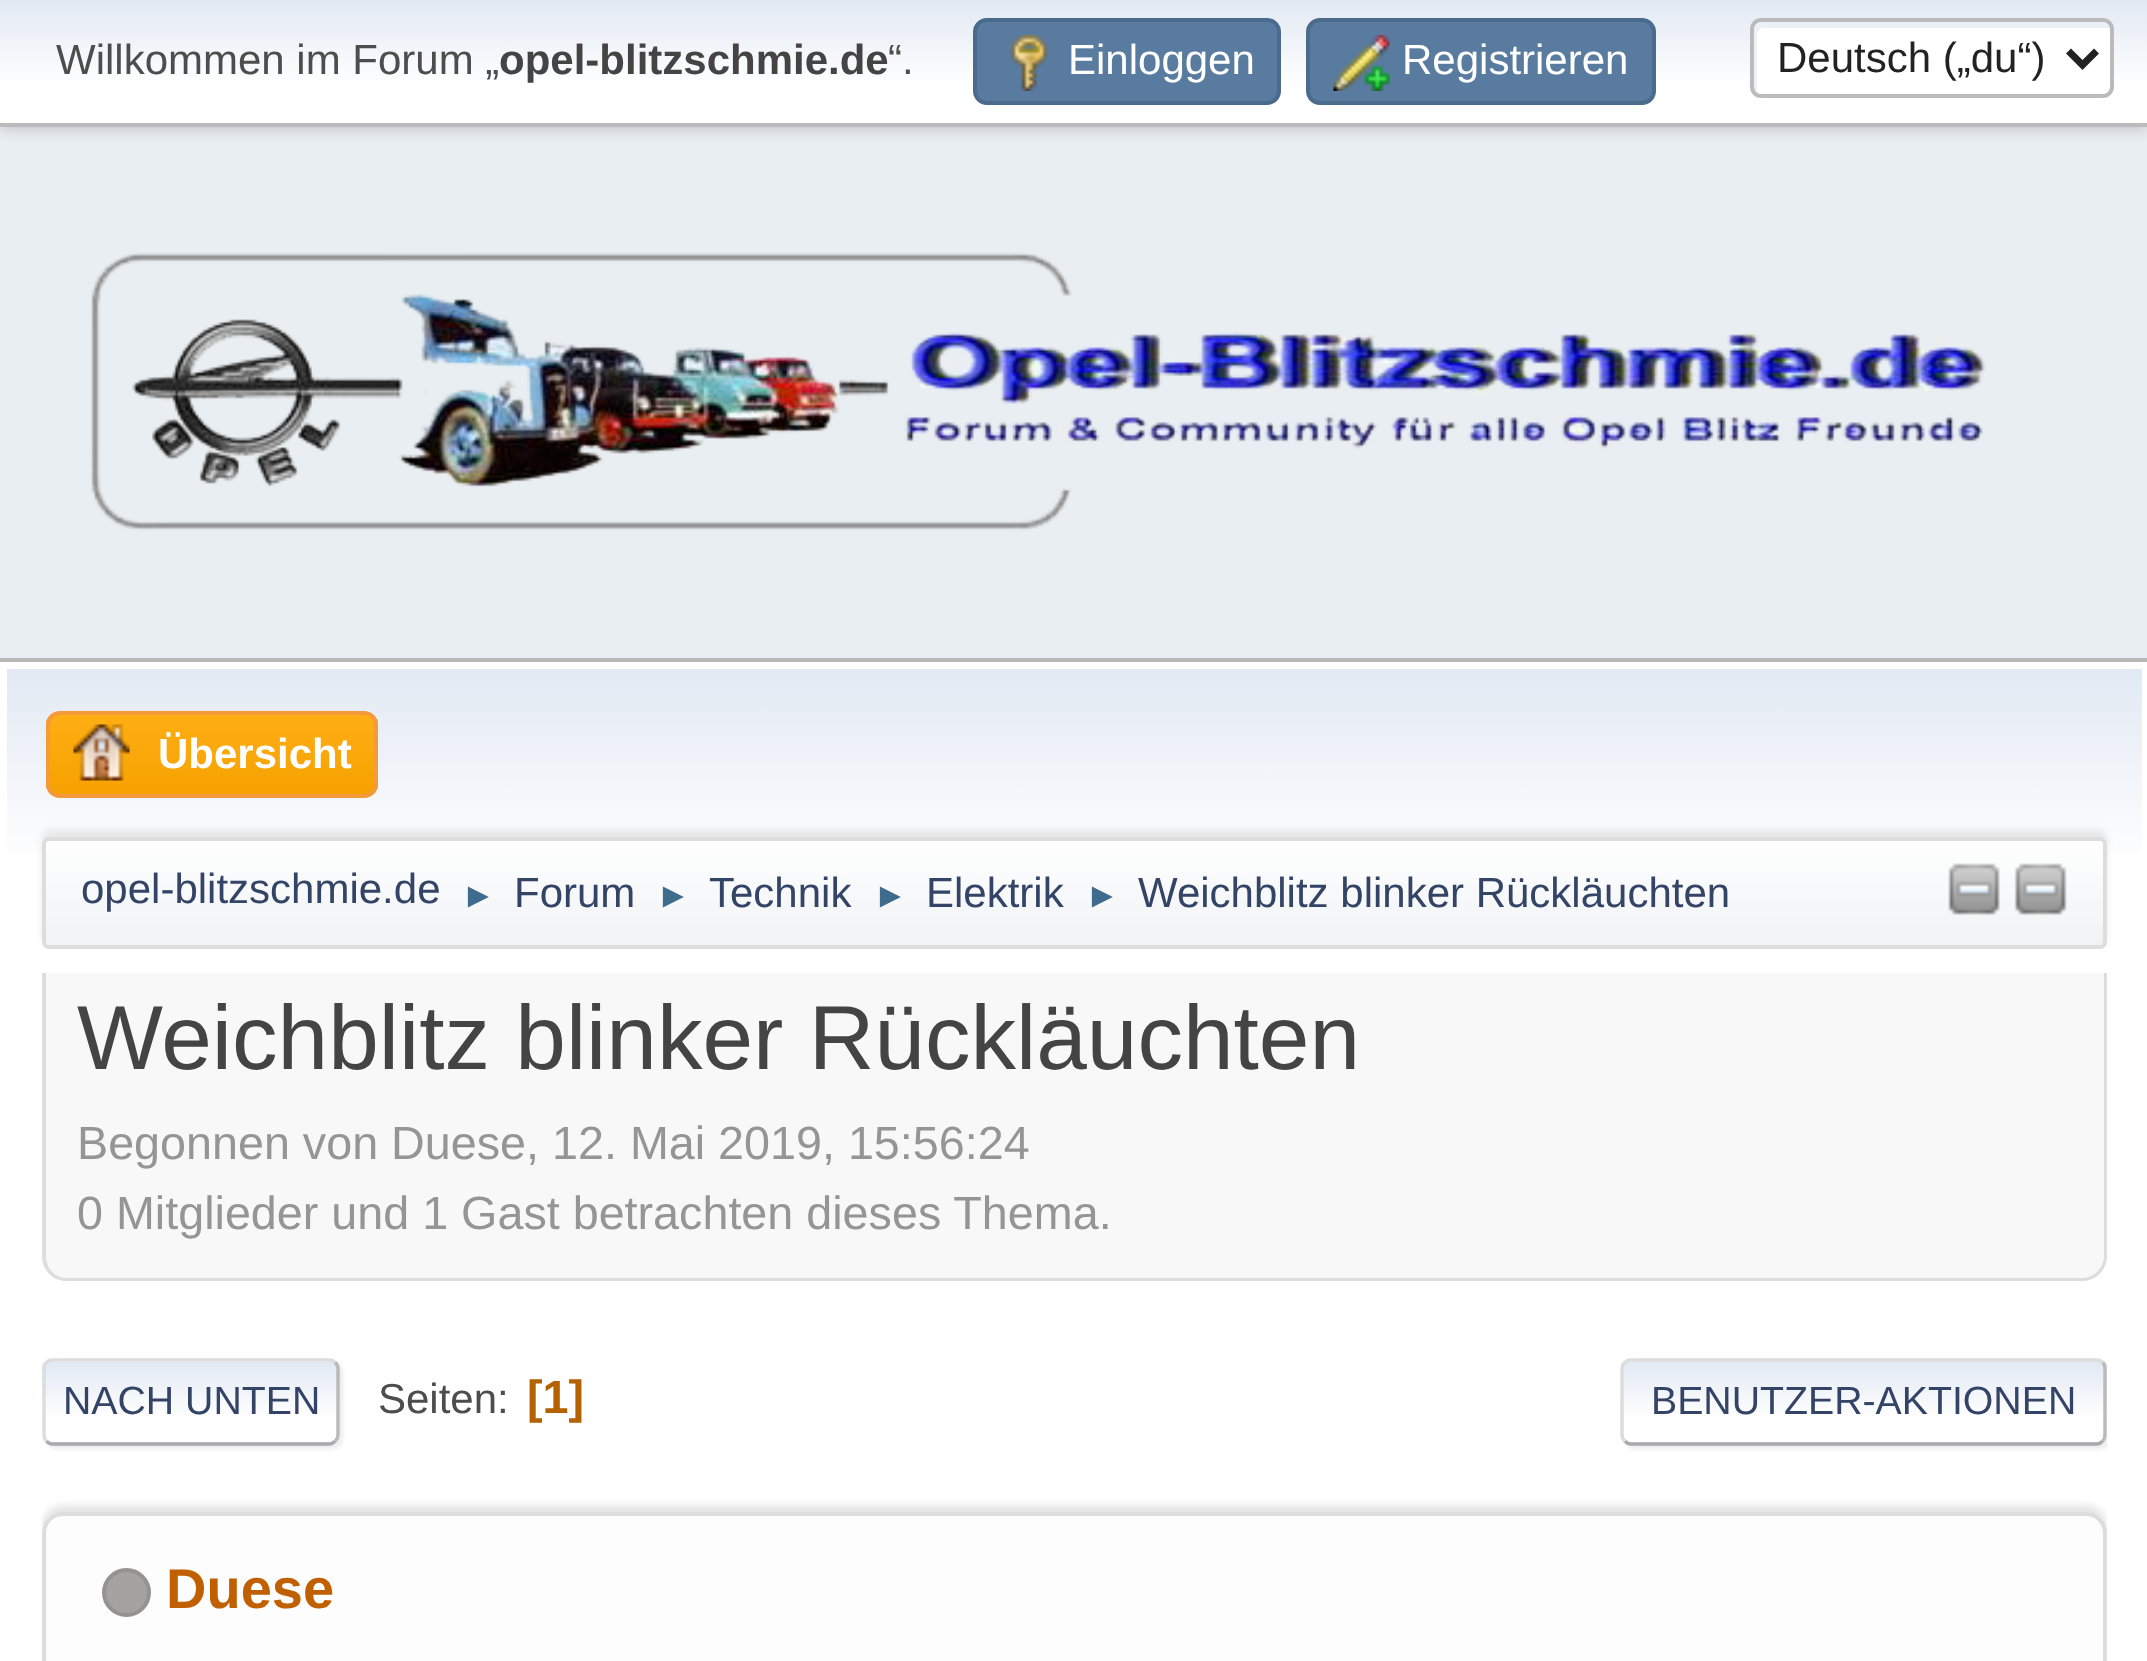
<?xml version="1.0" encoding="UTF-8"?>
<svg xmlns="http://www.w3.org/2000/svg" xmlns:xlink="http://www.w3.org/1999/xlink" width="2147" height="1661">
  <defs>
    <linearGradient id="g1" gradientUnits="userSpaceOnUse" x1="1075" y1="0" x2="1075" y2="123"><stop offset="0" stop-color="#e2e9f3" /><stop offset="0.7" stop-color="#ffffff" /></linearGradient>
    <linearGradient id="g2" gradientUnits="userSpaceOnUse" x1="1075" y1="668" x2="1075" y2="956"><stop offset="0" stop-color="#e2e9f3" /><stop offset="0.7" stop-color="#ffffff" /></linearGradient>
    <clipPath id="clip1"><rect x="46" y="711" width="332" height="87" rx="14" /></clipPath>
    <linearGradient id="g3" gradientUnits="userSpaceOnUse" x1="212" y1="714" x2="212" y2="795"><stop offset="0" stop-color="#ffae14" /><stop offset="1" stop-color="#f5a100" /></linearGradient>
    <clipPath id="clip2"><rect x="42" y="837" width="2065" height="112" rx="7" /></clipPath>
    <linearGradient id="g4" gradientUnits="userSpaceOnUse" x1="1075" y1="840" x2="1075" y2="945"><stop offset="0" stop-color="#ffffff" /><stop offset="0.95" stop-color="#f1f3f5" /></linearGradient>
    <clipPath id="clip3"><rect x="42" y="973" width="2065" height="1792" /></clipPath>
    <clipPath id="clip4"><rect x="42" y="1358" width="298" height="88" rx="11" /></clipPath>
    <linearGradient id="g5" gradientUnits="userSpaceOnUse" x1="191" y1="1362" x2="191" y2="1442"><stop offset="0" stop-color="#e2e9f3" /><stop offset="0.7" stop-color="#ffffff" /></linearGradient>
    <linearGradient id="g6" gradientUnits="userSpaceOnUse" x1="191" y1="1442" x2="191" y2="1523"><stop offset="0" stop-color="#e2e9f3" /><stop offset="0.7" stop-color="#ffffff" /></linearGradient>
    <clipPath id="clip5"><rect x="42" y="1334" width="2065" height="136" /></clipPath>
    <clipPath id="clip6"><rect x="1621" y="1358" width="486" height="88" rx="11" /></clipPath>
    <linearGradient id="g7" gradientUnits="userSpaceOnUse" x1="1864" y1="1362" x2="1864" y2="1442"><stop offset="0" stop-color="#e2e9f3" /><stop offset="0.7" stop-color="#ffffff" /></linearGradient>
    <linearGradient id="g8" gradientUnits="userSpaceOnUse" x1="1864" y1="1442" x2="1864" y2="1523"><stop offset="0" stop-color="#e2e9f3" /><stop offset="0.7" stop-color="#ffffff" /></linearGradient>
    <clipPath id="clip7"><rect x="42" y="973" width="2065" height="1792" /></clipPath>
  </defs>
  <rect width="100%" height="100%" fill="#e9eef2" />
  <rect y="4" width="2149" height="126" fill="#000000" fill-opacity="0.16" filter="blur(7px)" />
  <rect width="2147" height="123" fill="url(#g1)" />
  <rect y="123" width="2147" height="4" fill="#bbbbbb" />
  <rect x="975" y="20" width="304" height="83" rx="12" fill="#597b9f" stroke="#4a6b8c" stroke-width="4" />
  <image x="1010" y="35" width="38" height="56" xlink:href="image1.png" />
  <rect x="1308" y="20" width="346" height="83" rx="12" fill="#597b9f" stroke="#4a6b8c" stroke-width="4" />
  <image x="1333" y="35" width="57" height="56" xlink:href="image2.png" />
  <rect x="1750" y="18" width="364" height="80" rx="11" fill="#ffffff" />
  <path d="M 1764 28 h 343 c 2 0 3 0 4 1 v -1 c 0 -4 -3 -7 -7 -7 h -343 c -4 0 -7 3 -7 7 v 60 c 0 2 1 4 3 6 v -59 c 0 -4 3 -7 7 -7 z" fill="#ecf1f8" />
  <rect x="1752" y="20" width="360" height="76" rx="9" fill="none" stroke="#bbbbbb" stroke-width="4" />
  <path d="M 2068.5 51 l 14 14 l 14 -14" fill="none" stroke="#222222" stroke-width="7" />
  <image x="90" y="252" width="1896" height="279" xlink:href="image3.png" />
  <rect y="662" width="2147" height="999" fill="#ffffff" />
  <rect y="658" width="2147" height="4" fill="#b8b8b8" />
  <rect x="7" y="669" width="2135" height="183" fill="url(#g2)" />
  <g clip-path="url(#clip1)">
    <rect x="46" y="714" width="332" height="81" fill="url(#g3)" />
  </g>
  <rect x="48" y="713" width="328" height="83" rx="12" fill="none" stroke="#f49a3a" stroke-width="4" />
  <image x="73" y="724" width="57" height="57" xlink:href="image4.png" />
  <rect x="42" y="830" width="2065" height="112" rx="7" fill="#000000" fill-opacity="0.08" filter="blur(3.5px)" />
  <g clip-path="url(#clip2)">
    <rect x="42" y="840" width="2065" height="105" fill="url(#g4)" />
  </g>
  <rect x="44" y="839" width="2061" height="108" rx="5" fill="none" stroke="#dddddd" stroke-width="4" />
  <image x="1948" y="863" width="52" height="52" xlink:href="image5.png" />
  <image x="2014" y="863" width="53" height="52" xlink:href="image6.png" />
  <path d="M 42 973 h 2065 v 283 c 0 14 -11 25 -25 25 h -2015 c -14 0 -25 -11 -25 -25 z" fill="#f8f8f8" />
  <g clip-path="url(#clip3)">
    <path d="M 42 948 h 2065 v 308 c 0 14 -11 25 -25 25 h -2016 c -13 0 -24 -11 -24 -25 z m 4 0 h 2058 v 308 c 0 12 -10 22 -22 22 h -2016 c -11 0 -20 -10 -20 -22 z" fill="#dddddd" fill-rule="evenodd" />
  </g>
  <rect x="46" y="1362" width="297" height="87" rx="11" fill="#dddddd" fill-opacity="0.57" filter="blur(2px)" />
  <rect x="42" y="1358" width="298" height="88" rx="11" fill="#ffffff" />
  <g clip-path="url(#clip4)">
    <rect x="42" y="1362" width="298" height="80" fill="url(#g5)" />
    <rect x="42" y="1442" width="298" height="4" fill="url(#g6)" />
  </g>
  <path d="M 335 1362.5 c 2 1.5 3 3.5 3 6 v 66.5 c 0 2.5 -1 4.5 -3 6" fill="none" stroke="#bbbbbb" stroke-width="3.5" />
  <path d="M 335 1441 c -1.5 2 -3.5 3 -6 3 h -276.5 c -2.5 0 -4.5 -1 -6 -3" fill="none" stroke="#aaaaaa" stroke-width="3.5" />
  <path d="M 46.5 1441 c -2 -1.5 -2.5 -3.5 -2.5 -6 v -66.5 c 0 -2.5 0.5 -4.5 2.5 -6 c 1.5 -2 3.5 -2.5 6 -2.5 h 276.5 c 2.5 0 4.5 0.5 6 2.5" fill="none" stroke="#dddddd" stroke-width="3.5" />
  <g clip-path="url(#clip5)">
    <rect x="1624" y="1362" width="487" height="87" rx="11" fill="#dddddd" fill-opacity="0.57" filter="blur(2px)" />
  </g>
  <g clip-path="url(#clip6)">
    <rect x="1621" y="1362" width="486" height="80" fill="url(#g7)" />
    <rect x="1621" y="1442" width="486" height="4" fill="url(#g8)" />
  </g>
  <path d="M 2102.5 1362.5 c 2 1.5 2.5 3.5 2.5 6 v 66.5 c 0 2.5 -0.5 4.5 -2.5 6" fill="none" stroke="#bbbbbb" stroke-width="3.5" />
  <path d="M 2102.5 1441 c -1.5 2 -3.5 3 -6 3 h -465.5 c -2.5 0 -4.5 -1 -6 -3" fill="none" stroke="#aaaaaa" stroke-width="3.5" />
  <path d="M 1625 1441 c -2 -1.5 -3 -3.5 -3 -6 v -66.5 c 0 -2.5 1 -4.5 3 -6 c 1.5 -2 3.5 -2.5 6 -2.5 h 465.5 c 2.5 0 4.5 0.5 6 2.5" fill="none" stroke="#dddddd" stroke-width="3.5" />
  <g clip-path="url(#clip7)">
    <rect x="42" y="1505" width="2065" height="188" rx="21" fill="#000000" fill-opacity="0.1" filter="blur(3.5px)" />
  </g>
  <rect x="44" y="1514" width="2061" height="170" rx="19" fill="#fdfdfd" stroke="#dddddd" stroke-width="4" />
  <circle cx="126.5" cy="1592.5" r="22.5" fill="#a7a2a2" stroke="#969292" stroke-width="4" />
  <text x="56" y="74" style="font-family: Liberation Sans; font-size: 42px; fill: #4d4d4d">Willkommen im Forum „</text>
  <text x="499" y="74" style="font-family: Liberation Sans; font-size: 42px; font-weight: bold; fill: #444444">opel-blitzschmie.de</text>
  <text x="888" y="74" style="font-family: Liberation Sans; font-size: 42px; fill: #4d4d4d">“.</text>
  <text x="1068" y="74" style="font-family: Liberation Sans; font-size: 42px; fill: #ffffff">Einloggen</text>
  <text x="1402" y="74" style="font-family: Liberation Sans; font-size: 42px; fill: #ffffff">Registrieren</text>
  <text x="1777" y="72" style="font-family: Liberation Sans; font-size: 42px; fill: #222222">Deutsch („du“)</text>
  <text x="158" y="768" style="font-family: Liberation Sans; font-size: 42px; font-weight: bold; fill: #ffffff">Übersicht</text>
  <text x="81" y="903" style="font-family: Liberation Sans; font-size: 42px; fill: #334466">opel-blitzschmie.de</text>
  <text x="461" y="907" style="font-family: Liberation Sans; font-size: 35px; fill: #3f6b8c">►</text>
  <text x="514" y="907" style="font-family: Liberation Sans; font-size: 42px; fill: #334466">Forum</text>
  <text x="656" y="907" style="font-family: Liberation Sans; font-size: 35px; fill: #3f6b8c">►</text>
  <text x="709" y="907" style="font-family: Liberation Sans; font-size: 42px; fill: #334466">Technik</text>
  <text x="873" y="907" style="font-family: Liberation Sans; font-size: 35px; fill: #3f6b8c">►</text>
  <text x="926" y="907" style="font-family: Liberation Sans; font-size: 42px; fill: #334466">Elektrik</text>
  <text x="1085" y="907" style="font-family: Liberation Sans; font-size: 35px; fill: #3f6b8c">►</text>
  <text x="1138" y="907" style="font-family: Liberation Sans; font-size: 42px; fill: #334466">Weichblitz blinker Rückläuchten</text>
  <text x="77" y="1069" style="font-family: Liberation Sans; font-size: 91px; fill: #444444">Weichblitz blinker Rückläuchten</text>
  <text x="77" y="1159" style="font-family: Liberation Sans; font-size: 46.7px; fill: #959595">Begonnen von Duese, 12. Mai 2019, 15:56:24</text>
  <text x="77" y="1229" style="font-family: Liberation Sans; font-size: 46.7px; fill: #959595">0 Mitglieder und 1 Gast betrachten dieses Thema.</text>
  <text x="63" y="1414" style="font-family: Liberation Sans; font-size: 39.25px; fill: #334466">NACH UNTEN</text>
  <text x="378" y="1413" style="font-family: Liberation Sans; font-size: 42px; fill: #4d4d4d">Seiten:</text>
  <text x="527" y="1413" style="font-family: Liberation Sans; font-size: 46.7px; font-weight: bold; fill: #b46100">[1]</text>
  <text x="1651" y="1414" style="font-family: Liberation Sans; font-size: 39.25px; fill: #334466">BENUTZER-AKTIONEN</text>
  <text x="166" y="1608" style="font-family: Liberation Sans; font-size: 56px; font-weight: bold; fill: #c06002">Duese</text>
</svg>
